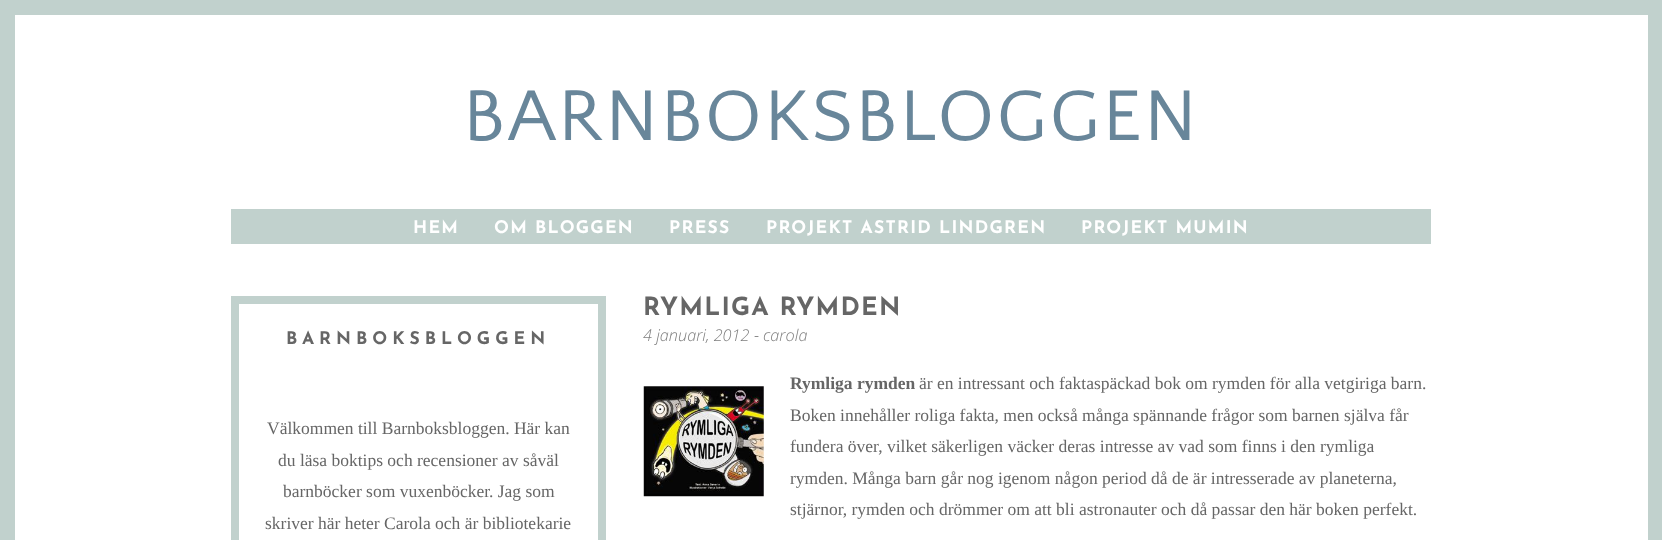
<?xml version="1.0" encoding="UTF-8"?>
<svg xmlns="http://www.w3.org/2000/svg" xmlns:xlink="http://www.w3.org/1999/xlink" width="1662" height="540">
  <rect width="100%" height="100%" fill="#ffffff" />
  <rect x="7.5" y="7.5" width="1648" height="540" fill="none" stroke="#c1d1cd" stroke-width="15" />
  <rect x="231" y="209" width="1200" height="35" fill="#c1d1cd" />
  <rect x="235" y="300" width="367" height="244" fill="none" stroke="#c1d1cd" stroke-width="8" />
  <image x="643" y="386" width="121" height="111" xlink:href="image1.png" />
  <text x="463" y="140" style="font-family: Quattrocento Sans; font-size: 75px; letter-spacing: 2.5px; fill: #68869a">BARNBOKSBLOGGEN</text>
  <text x="413" y="233" style="font-family: Josefin Sans; font-size: 17.5px; font-weight: bold; letter-spacing: 1.25px; fill: #ffffff">HEM</text>
  <text x="494" y="233" style="font-family: Josefin Sans; font-size: 17.5px; font-weight: bold; letter-spacing: 1.25px; fill: #ffffff">OM BLOGGEN</text>
  <text x="669" y="233" style="font-family: Josefin Sans; font-size: 17.5px; font-weight: bold; letter-spacing: 1.25px; fill: #ffffff">PRESS</text>
  <text x="766" y="233" style="font-family: Josefin Sans; font-size: 17.5px; font-weight: bold; letter-spacing: 1.25px; fill: #ffffff">PROJEKT ASTRID LINDGREN</text>
  <text x="1081" y="233" style="font-family: Josefin Sans; font-size: 17.5px; font-weight: bold; letter-spacing: 1.25px; fill: #ffffff">PROJEKT MUMIN</text>
  <text x="286" y="344" style="font-family: Josefin Sans; font-size: 17.5px; font-weight: bold; letter-spacing: 5px; fill: #666666">BARNBOKSBLOGGEN</text>
  <text x="267" y="434" style="font-family: Liberation Serif; font-size: 17.5px; fill: #666666">Välkommen till Barnboksbloggen. Här kan</text>
  <text x="278" y="466" style="font-family: Liberation Serif; font-size: 17.5px; fill: #666666">du läsa boktips och recensioner av såväl</text>
  <text x="283" y="497" style="font-family: Liberation Serif; font-size: 17.5px; fill: #666666">barnböcker som vuxenböcker. Jag som</text>
  <text x="265" y="529" style="font-family: Liberation Serif; font-size: 17.5px; fill: #666666">skriver här heter Carola och är bibliotekarie</text>
  <text x="643" y="315" style="font-family: Josefin Sans; font-size: 25px; font-weight: bold; letter-spacing: 1.25px; fill: #666666">RYMLIGA RYMDEN</text>
  <text x="643" y="341" style="font-family: Open Sans; font-size: 16.25px; font-weight: 300; font-style: italic; fill: #7f7f7f">4 januari, 2012</text>
  <text x="754" y="341" style="font-family: Open Sans; font-size: 16.25px; font-weight: 300; font-style: italic; fill: #666666">-</text>
  <text x="763" y="341" style="font-family: Open Sans; font-size: 16.25px; font-weight: 300; font-style: italic; fill: #7f7f7f">carola</text>
  <text x="790" y="389" style="font-family: Liberation Serif; font-size: 17.5px; font-weight: bold; fill: #666666">Rymliga rymden</text>
  <text x="919" y="389" style="font-family: Liberation Serif; font-size: 17.5px; fill: #666666">är en intressant och faktaspäckad bok om rymden för alla vetgiriga barn.</text>
  <text x="790" y="421" style="font-family: Liberation Serif; font-size: 17.5px; fill: #666666">Boken innehåller roliga fakta, men också många spännande frågor som barnen själva får</text>
  <text x="790" y="452" style="font-family: Liberation Serif; font-size: 17.5px; fill: #666666">fundera över, vilket säkerligen väcker deras intresse av vad som finns i den rymliga</text>
  <text x="790" y="484" style="font-family: Liberation Serif; font-size: 17.5px; fill: #666666">rymden. Många barn går nog igenom någon period då de är intresserade av planeterna,</text>
  <text x="790" y="515" style="font-family: Liberation Serif; font-size: 17.5px; fill: #666666">stjärnor, rymden och drömmer om att bli astronauter och då passar den här boken perfekt.</text>
</svg>
